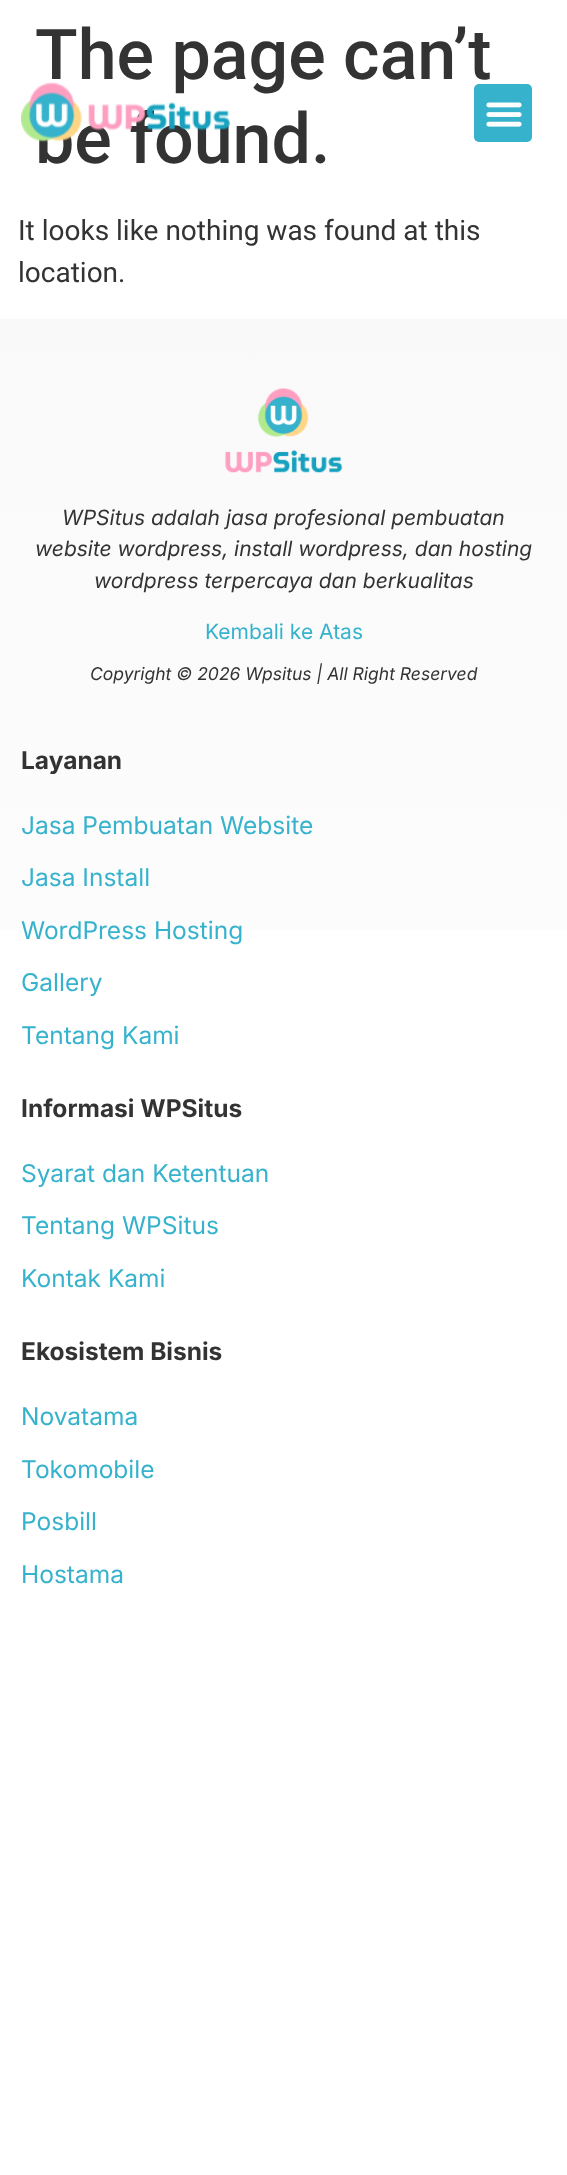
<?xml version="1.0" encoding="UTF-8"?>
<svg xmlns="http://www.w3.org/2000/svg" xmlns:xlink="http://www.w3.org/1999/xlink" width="567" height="2175">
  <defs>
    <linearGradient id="g1" gradientUnits="userSpaceOnUse" x1="283" y1="319" x2="284" y2="1661"><stop offset="0" stop-color="#f9f9f9" /><stop offset="0.78" stop-color="#ffffff" /></linearGradient>
  </defs>
  <rect width="100%" height="100%" fill="#ffffff" />
  <rect y="319" width="567" height="611" fill="url(#g1)" />
  <image x="225" y="388" width="118" height="85" xlink:href="image3.png" />
  <text x="35" y="79" style="font-family: Roboto; font-size: 70px; font-weight: 500; fill: #333333">The page can’t</text>
  <text x="35" y="163" style="font-family: Roboto; font-size: 70px; font-weight: 500; fill: #333333">be found.</text>
  <text x="18" y="240" style="font-family: Roboto; font-size: 28px; fill: #333333">It looks like nothing was found at this</text>
  <text x="18" y="282" style="font-family: Roboto; font-size: 28px; fill: #333333">location.</text>
  <image x="21" y="82" width="209" height="60" xlink:href="image1.png" />
  <rect x="474" y="84" width="58" height="58" rx="5" fill="#36b2cd" />
  <image x="486" y="102" width="36" height="25" xlink:href="image2.png" />
  <text x="62" y="525" style="font-family: Inter; font-size: 21px; font-style: italic; fill: #333333">WPSitus adalah jasa profesional pembuatan</text>
  <text x="35" y="556" style="font-family: Inter; font-size: 21px; font-style: italic; fill: #333333">website wordpress, install wordpress, dan hosting</text>
  <text x="94" y="588" style="font-family: Inter; font-size: 21px; font-style: italic; fill: #333333">wordpress terpercaya dan berkualitas</text>
  <text x="205" y="639" style="font-family: Inter; font-size: 21px; fill: #36b2cd">Kembali ke Atas</text>
  <text x="90" y="680" style="font-family: Inter; font-size: 17.5px; font-style: italic; fill: #333333">Copyright © 2026 Wpsitus | All Right Reserved</text>
  <text x="21" y="769" style="font-family: Inter; font-size: 24.5px; font-weight: bold; fill: #333333">Layanan</text>
  <text x="21" y="834" style="font-family: Inter; font-size: 24.5px; fill: #36b2cd">Jasa Pembuatan Website</text>
  <text x="21" y="886" style="font-family: Inter; font-size: 24.5px; fill: #36b2cd">Jasa Install</text>
  <text x="21" y="939" style="font-family: Inter; font-size: 24.5px; fill: #36b2cd">WordPress Hosting</text>
  <text x="21" y="991" style="font-family: Inter; font-size: 24.5px; fill: #36b2cd">Gallery</text>
  <text x="21" y="1044" style="font-family: Inter; font-size: 24.5px; fill: #36b2cd">Tentang Kami</text>
  <text x="21" y="1117" style="font-family: Inter; font-size: 24.5px; font-weight: bold; fill: #333333">Informasi WPSitus</text>
  <text x="21" y="1182" style="font-family: Inter; font-size: 24.5px; fill: #36b2cd">Syarat dan Ketentuan</text>
  <text x="21" y="1234" style="font-family: Inter; font-size: 24.5px; fill: #36b2cd">Tentang WPSitus</text>
  <text x="21" y="1287" style="font-family: Inter; font-size: 24.5px; fill: #36b2cd">Kontak Kami</text>
  <text x="21" y="1360" style="font-family: Inter; font-size: 24.5px; font-weight: bold; fill: #333333">Ekosistem Bisnis</text>
  <text x="21" y="1425" style="font-family: Inter; font-size: 24.5px; fill: #36b2cd">Novatama</text>
  <text x="21" y="1478" style="font-family: Inter; font-size: 24.5px; fill: #36b2cd">Tokomobile</text>
  <text x="21" y="1530" style="font-family: Inter; font-size: 24.5px; fill: #36b2cd">Posbill</text>
  <text x="21" y="1583" style="font-family: Inter; font-size: 24.5px; fill: #36b2cd">Hostama</text>
</svg>
